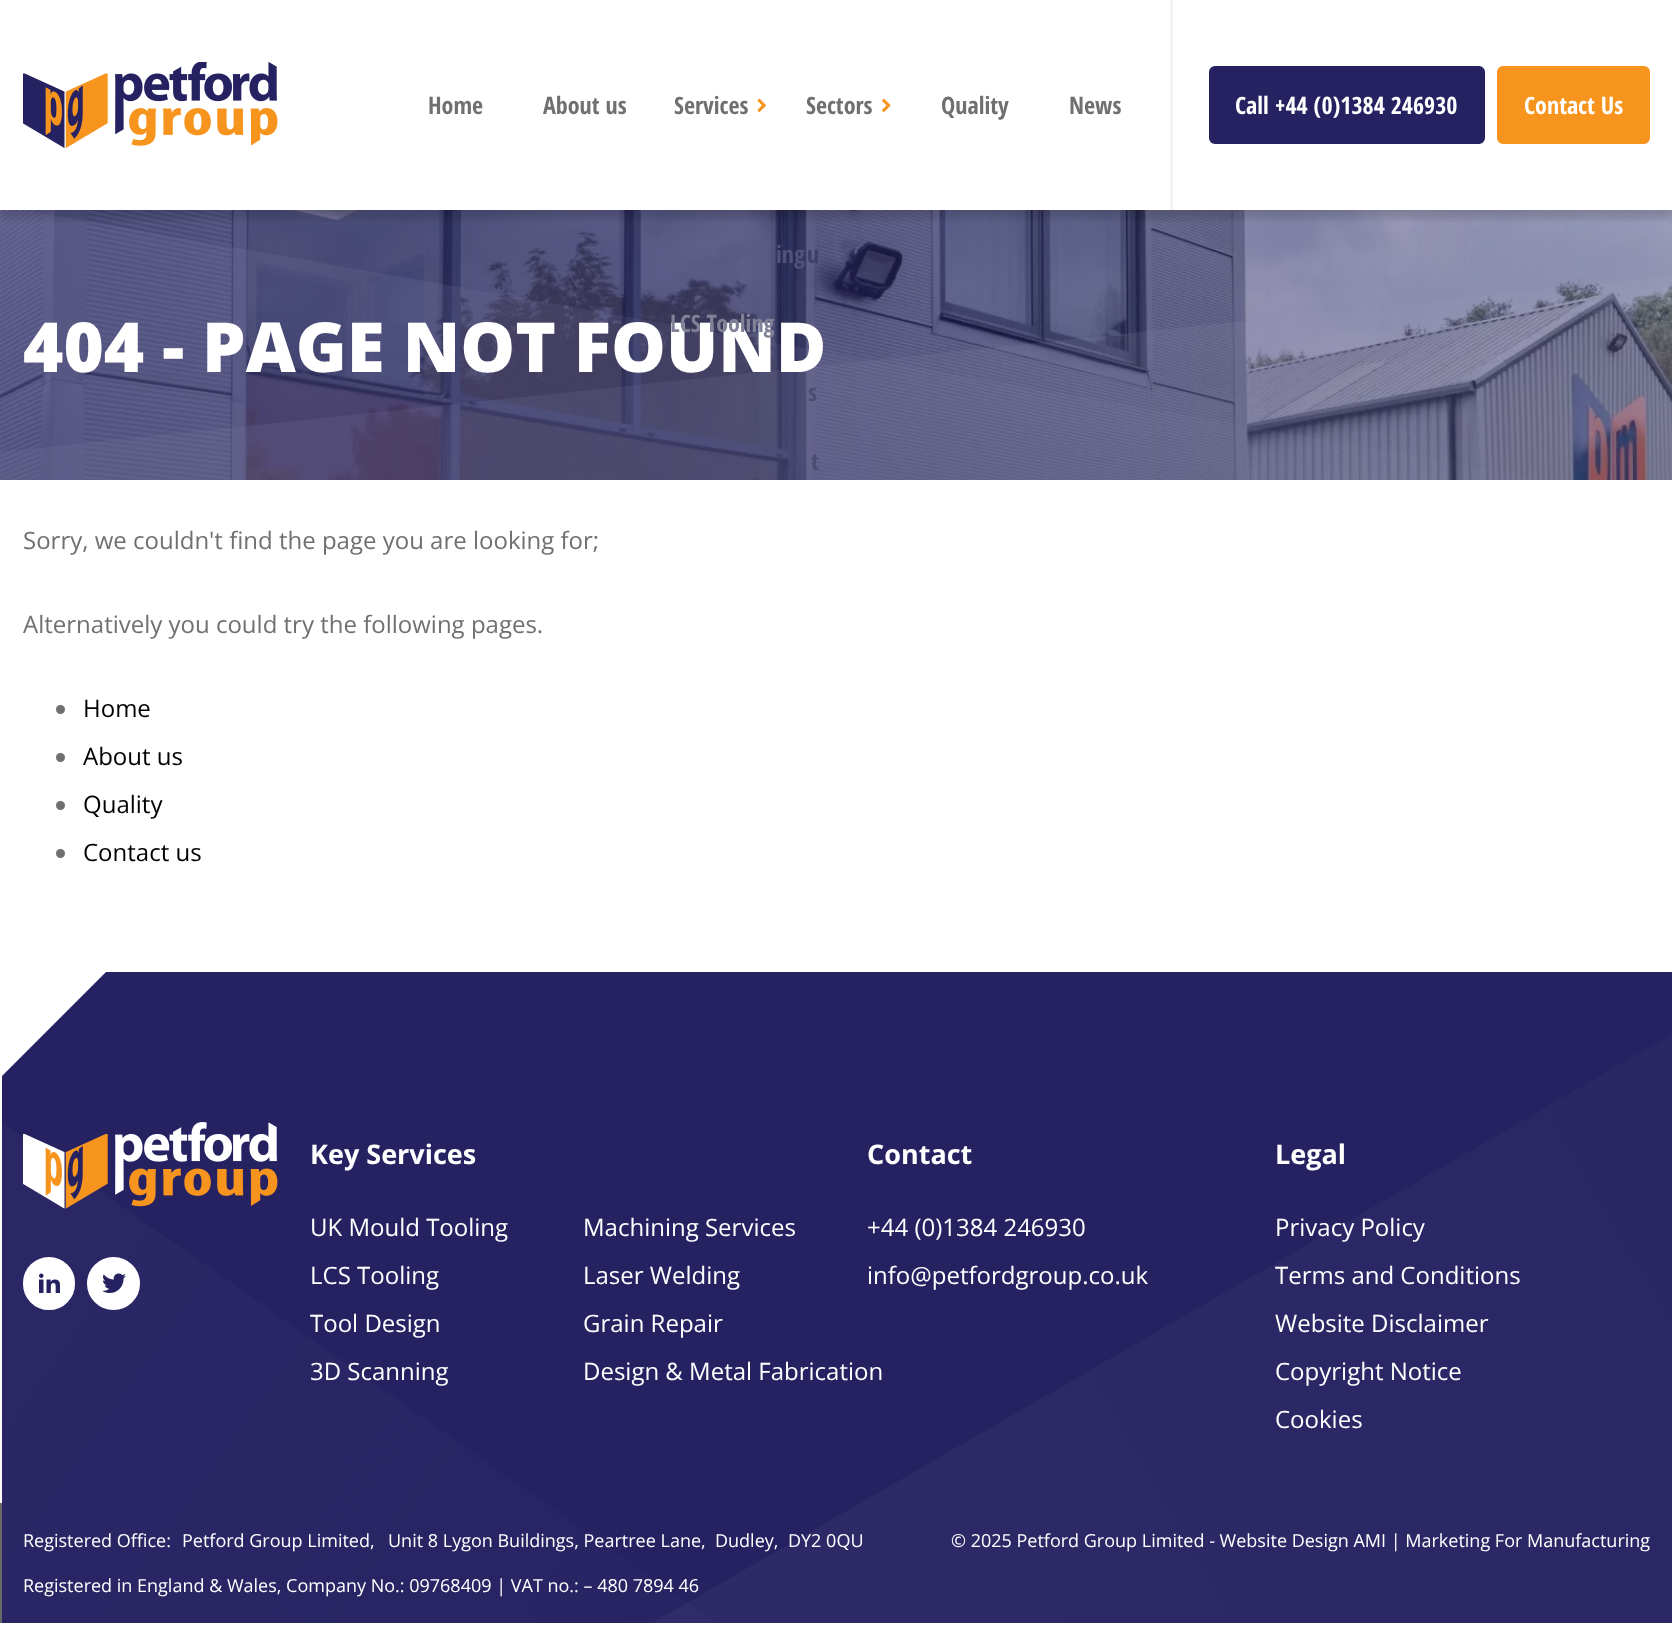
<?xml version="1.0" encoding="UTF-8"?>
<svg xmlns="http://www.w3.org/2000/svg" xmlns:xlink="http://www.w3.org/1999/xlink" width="1672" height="1630">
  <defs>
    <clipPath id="clip1"><rect x="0" y="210" width="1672" height="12" /></clipPath>
    <clipPath id="clip2"><rect y="972" width="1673" height="651" /></clipPath>
    <linearGradient id="g1" gradientUnits="userSpaceOnUse" x1="224" y1="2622" x2="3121" y2="950"><stop offset="0" stop-color="#312d6a" /><stop offset="1" stop-color="#262262" /></linearGradient>
    <linearGradient id="g2" gradientUnits="userSpaceOnUse" x1="-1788" y1="664" x2="952" y2="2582"><stop offset="0" stop-color="#ffffff" stop-opacity="0.05" /><stop offset="1" stop-color="#ffffff" stop-opacity="0" /></linearGradient>
  </defs>
  <rect width="100%" height="100%" fill="#ffffff" />
  <image x="0" y="210" width="1672" height="270" xlink:href="image1.png" />
  <g clip-path="url(#clip1)">
    <rect y="8" width="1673" height="210" fill="#000000" fill-opacity="0.15" filter="blur(4px)" />
  </g>
  <image x="23" y="62" width="255" height="86" xlink:href="image2.png" />
  <image x="757" y="98" width="9" height="15" xlink:href="image3.png" />
  <image x="881" y="98" width="10" height="15" xlink:href="image4.png" />
  <rect x="1170" width="3" height="210" fill="#f3f3f3" />
  <rect x="1210.5" y="67.5" width="273" height="75" rx="4.5" fill="#262262" stroke="#262262" stroke-width="3" />
  <rect x="1498.5" y="67.5" width="150" height="75" rx="4.5" fill="#f7941e" stroke="#f7941e" stroke-width="3" />
  <circle cx="60.5" cy="709.5" r="4.5" fill="#707070" />
  <circle cx="60.5" cy="757.5" r="4.5" fill="#707070" />
  <circle cx="60.5" cy="805.5" r="4.5" fill="#707070" />
  <circle cx="60.5" cy="853.5" r="4.5" fill="#707070" />
  <rect x="2" y="972" width="1670" height="651" fill="#262262" />
  <g clip-path="url(#clip2)">
    <path d="M -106 972 l 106 -106 l 106 106 l -106 106 z" fill="#ffffff" />
    <path d="M -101 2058 l 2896 -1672 l 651 1127 l -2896 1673 z" fill="url(#g1)" />
  </g>
  <rect y="1503" width="2" height="120" fill="#666666" />
  <path d="M -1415 130 l 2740 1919 l -746 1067 l -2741 -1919 z" fill="url(#g2)" />
  <image x="23" y="1122" width="255" height="87" xlink:href="image5.png" />
  <rect x="24.5" y="1258.5" width="49" height="50" rx="24.5" fill="#ffffff" stroke="#ffffff" stroke-width="3" />
  <image x="39" y="1273" width="21" height="20" xlink:href="image6.png" />
  <circle cx="113.5" cy="1283.5" r="25" fill="#ffffff" stroke="#ffffff" stroke-width="3" />
  <image x="102" y="1273" width="24" height="20" xlink:href="image7.png" />
  <text x="23" y="372" style="font-family: Open Sans; font-size: 69px; font-weight: 800; fill: #ffffff">404 - PAGE NOT FOUND</text>
  <text x="428" y="114" style="font-family: Open Sans Condensed; font-size: 24px; font-weight: bold; fill: #707070">Home</text>
  <text x="543" y="114" style="font-family: Open Sans Condensed; font-size: 24px; font-weight: bold; fill: #707070">About us</text>
  <text x="674" y="114" style="font-family: Open Sans Condensed; font-size: 24px; font-weight: bold; fill: #707070">Services</text>
  <text x="776" y="263" style="font-family: Open Sans Condensed; font-size: 24px; font-weight: bold; fill: #51527c">ing</text>
  <text x="670" y="332" style="font-family: Open Sans Condensed; font-size: 24px; font-weight: bold; fill: #818198">LCS Tooling</text>
  <text x="808" y="401" style="font-family: Open Sans Condensed; font-size: 24px; font-weight: bold; fill: #4c4b70">s</text>
  <text x="811" y="470" style="font-family: Open Sans Condensed; font-size: 24px; font-weight: bold; fill: #4c4b70">t</text>
  <text x="806" y="114" style="font-family: Open Sans Condensed; font-size: 24px; font-weight: bold; fill: #707070">Sectors</text>
  <text x="807" y="263" style="font-family: Open Sans Condensed; font-size: 24px; font-weight: bold; fill: #3e3e66">u</text>
  <text x="941" y="114" style="font-family: Open Sans Condensed; font-size: 24px; font-weight: bold; fill: #707070">Quality</text>
  <text x="1069" y="114" style="font-family: Open Sans Condensed; font-size: 24px; font-weight: bold; fill: #707070">News</text>
  <text x="1235" y="114" style="font-family: Open Sans Condensed; font-size: 24px; font-weight: bold; fill: #ffffff">Call +44 (0)1384 246930</text>
  <text x="1524" y="114" style="font-family: Open Sans Condensed; font-size: 24px; font-weight: bold; fill: #ffffff">Contact Us</text>
  <text x="23" y="549" style="font-family: Open Sans; font-size: 24px; fill: #707070">Sorry, we couldn't find the page you are looking for;</text>
  <text x="23" y="633" style="font-family: Open Sans; font-size: 24px; fill: #707070">Alternatively you could try the following pages.</text>
  <text x="83" y="717" style="font-family: Open Sans; font-size: 24px; fill: #000000">Home</text>
  <text x="83" y="765" style="font-family: Open Sans; font-size: 24px; fill: #000000">About us</text>
  <text x="83" y="813" style="font-family: Open Sans; font-size: 24px; fill: #000000">Quality</text>
  <text x="83" y="861" style="font-family: Open Sans; font-size: 24px; fill: #000000">Contact us</text>
  <text x="310" y="1164" style="font-family: Open Sans; font-size: 27px; font-weight: bold; fill: #ffffff">Key Services</text>
  <text x="310" y="1236" style="font-family: Open Sans; font-size: 24px; fill: #ffffff">UK Mould Tooling</text>
  <text x="583" y="1236" style="font-family: Open Sans; font-size: 24px; fill: #ffffff">Machining Services</text>
  <text x="310" y="1284" style="font-family: Open Sans; font-size: 24px; fill: #ffffff">LCS Tooling</text>
  <text x="583" y="1284" style="font-family: Open Sans; font-size: 24px; fill: #ffffff">Laser Welding</text>
  <text x="310" y="1332" style="font-family: Open Sans; font-size: 24px; fill: #ffffff">Tool Design</text>
  <text x="583" y="1332" style="font-family: Open Sans; font-size: 24px; fill: #ffffff">Grain Repair</text>
  <text x="310" y="1380" style="font-family: Open Sans; font-size: 24px; fill: #ffffff">3D Scanning</text>
  <text x="583" y="1380" style="font-family: Open Sans; font-size: 24px; fill: #ffffff">Design &amp; Metal Fabrication</text>
  <text x="867" y="1164" style="font-family: Open Sans; font-size: 27px; font-weight: bold; fill: #ffffff">Contact</text>
  <text x="867" y="1236" style="font-family: Open Sans; font-size: 24px; fill: #ffffff">+44 (0)1384 246930</text>
  <text x="867" y="1284" style="font-family: Open Sans; font-size: 24px; fill: #ffffff">info@petfordgroup.co.uk</text>
  <text x="1275" y="1164" style="font-family: Open Sans; font-size: 27px; font-weight: bold; fill: #ffffff">Legal</text>
  <text x="1275" y="1236" style="font-family: Open Sans; font-size: 24px; fill: #ffffff">Privacy Policy</text>
  <text x="1275" y="1284" style="font-family: Open Sans; font-size: 24px; fill: #ffffff">Terms and Conditions</text>
  <text x="1275" y="1332" style="font-family: Open Sans; font-size: 24px; fill: #ffffff">Website Disclaimer</text>
  <text x="1275" y="1380" style="font-family: Open Sans; font-size: 24px; fill: #ffffff">Copyright Notice</text>
  <text x="1275" y="1428" style="font-family: Open Sans; font-size: 24px; fill: #ffffff">Cookies</text>
  <text x="23" y="1547" style="font-family: Open Sans; font-size: 18px; fill: #ffffff">Registered Office:</text>
  <text x="182" y="1547" style="font-family: Open Sans; font-size: 18px; fill: #ffffff">Petford Group Limited,</text>
  <text x="388" y="1547" style="font-family: Open Sans; font-size: 18px; fill: #ffffff">Unit 8 Lygon Buildings, Peartree Lane,</text>
  <text x="715" y="1547" style="font-family: Open Sans; font-size: 18px; fill: #ffffff">Dudley,</text>
  <text x="788" y="1547" style="font-family: Open Sans; font-size: 18px; fill: #ffffff">DY2 0QU</text>
  <text x="23" y="1592" style="font-family: Open Sans; font-size: 18px; fill: #ffffff">Registered in England &amp; Wales, Company No.: 09768409 | VAT no.: – 480 7894 46</text>
  <text x="951" y="1547" style="font-family: Open Sans; font-size: 18px; fill: #ffffff">© 2025 Petford Group Limited - Website Design AMI | Marketing For Manufacturing</text>
</svg>
